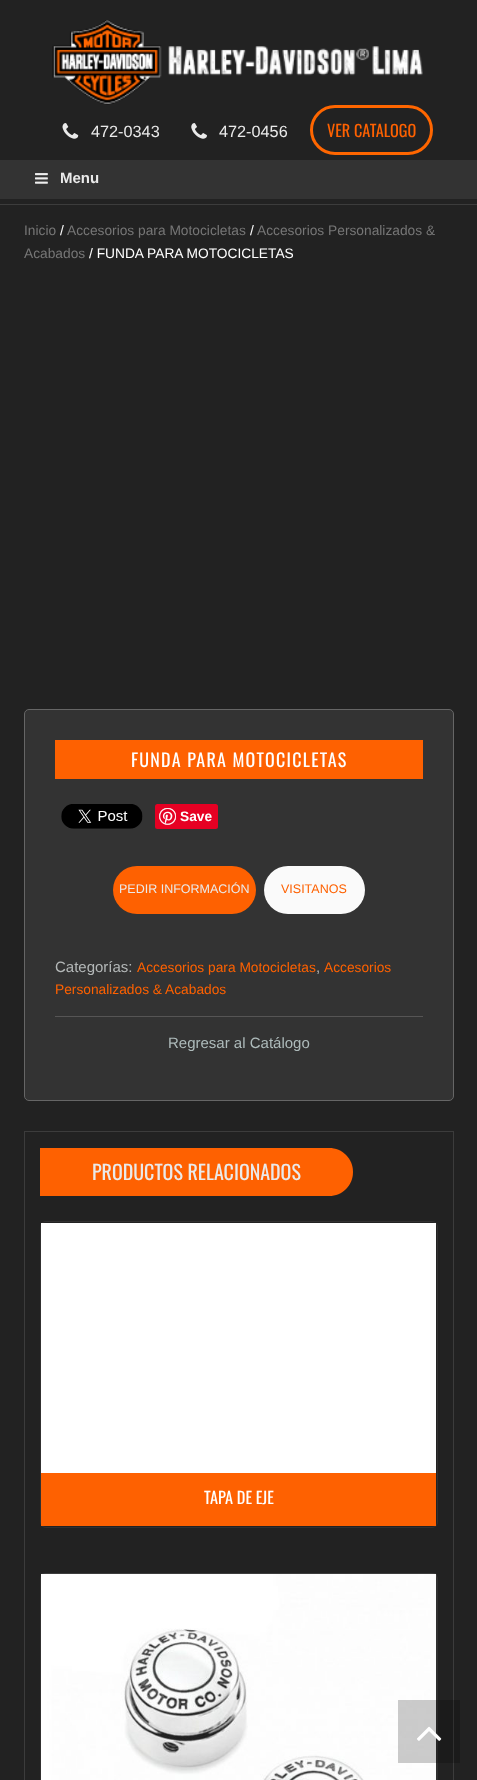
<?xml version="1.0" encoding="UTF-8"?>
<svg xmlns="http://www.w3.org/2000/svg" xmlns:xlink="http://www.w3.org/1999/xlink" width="477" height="1780">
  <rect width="100%" height="100%" fill="#222222" />
  <image x="52" y="20" width="371" height="85" xlink:href="image1.png" />
  <image x="62" y="123" width="17" height="16" xlink:href="image2.png" />
  <image x="191" y="123" width="16" height="16" xlink:href="image3.png" />
  <rect x="311.5" y="106.5" width="120" height="47" rx="23.5" fill="none" stroke="#ff6600" stroke-width="3" />
  <rect y="160" width="477" height="39" fill="#333333" />
  <image x="35" y="173" width="13" height="11" xlink:href="image4.png" />
  <rect y="204" width="477" height="1" fill="#3c3c3c" />
  <rect x="24.5" y="709.5" width="429" height="391" rx="4.5" fill="#333333" stroke="#666666" />
  <rect x="55" y="740" width="368" height="39" fill="#fe6101" />
  <image x="61" y="804" width="82" height="25" xlink:href="image5.png" />
  <rect x="155" y="804" width="63" height="25" rx="2.5" fill="#e60023" />
  <image x="159" y="808" width="17" height="17" xlink:href="image6.png" />
  <rect x="113" y="866" width="143" height="48" rx="24" fill="#fe6101" />
  <rect x="264" y="866" width="101" height="48" rx="24" fill="#fafafa" />
  <rect x="55" y="1016" width="368" height="1" fill="#565555" />
  <rect x="24.5" y="1131.5" width="429" height="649" fill="none" stroke="#3c3c3c" />
  <path d="M 40 1148 h 289 c 13.5 0 24 10.5 24 24 c 0 13.5 -10.5 24 -24 24 h -289 z" fill="#fe6101" />
  <rect x="40.5" y="1221.5" width="397" height="306" rx="5.5" fill="none" stroke="#313030" />
  <rect x="41" y="1223" width="395" height="250" fill="#ffffff" />
  <rect x="41" y="1473" width="395" height="53" fill="#fe6101" />
  <rect x="40.5" y="1573.5" width="397" height="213" rx="5.5" fill="none" stroke="#313030" />
  <rect x="41" y="1574" width="1" height="206" fill="#ffffff" />
  <image x="41" y="1573" width="396" height="207" xlink:href="image7.png" />
  <rect x="398" y="1700" width="62" height="63" fill="#000000" fill-opacity="0.2" />
  <image x="417" y="1726" width="25" height="15" xlink:href="image8.png" />
  <text x="91" y="137" style="font-family: Liberation Sans; font-size: 16.25px; fill: #eaeaea">472-0343</text>
  <text x="219" y="137" style="font-family: Liberation Sans; font-size: 16.25px; fill: #eaeaea">472-0456</text>
  <text x="327" y="137" style="font-family: Oswald; font-size: 16.25px; fill: #fe6101">VER CATALOGO</text>
  <text x="60" y="183" style="font-family: Liberation Sans; font-size: 15px; font-weight: bold; fill: #eaeaea">Menu</text>
  <text x="24" y="235" style="font-family: Liberation Sans; font-size: 13.75px; fill: #767676">Inicio</text>
  <text x="60" y="235" style="font-family: Liberation Sans; font-size: 13.75px; fill: #ffffff">/</text>
  <text x="67" y="235" style="font-family: Liberation Sans; font-size: 13.75px; fill: #767676">Accesorios para Motocicletas</text>
  <text x="250" y="235" style="font-family: Liberation Sans; font-size: 13.75px; fill: #ffffff">/</text>
  <text x="257" y="235" style="font-family: Liberation Sans; font-size: 13.75px; fill: #767676">Accesorios Personalizados &amp;</text>
  <text x="24" y="258" style="font-family: Liberation Sans; font-size: 13.75px; fill: #767676">Acabados</text>
  <text x="89" y="258" style="font-family: Liberation Sans; font-size: 13.75px; fill: #ffffff">/ FUNDA PARA MOTOCICLETAS</text>
  <text x="131" y="767" style="font-family: Oswald; font-size: 18px; letter-spacing: 1.25px; fill: #ffffff">FUNDA PARA MOTOCICLETAS</text>
  <text x="180" y="821" style="font-family: Liberation Sans; font-size: 13.75px; font-weight: bold; fill: #ffffff">Save</text>
  <text x="119" y="893" style="font-family: Liberation Sans; font-size: 12.5px; fill: #eaeaea">PEDIR INFORMACIÓN</text>
  <text x="281" y="893" style="font-family: Liberation Sans; font-size: 12.5px; fill: #fe6101">VISITANOS</text>
  <text x="55" y="972" style="font-family: Liberation Sans; font-size: 15px; fill: #b4b8b8">Categorías:</text>
  <text x="137" y="972" style="font-family: Liberation Sans; font-size: 13.75px; fill: #fe6101">Accesorios para Motocicletas</text>
  <text x="316" y="972" style="font-family: Liberation Sans; font-size: 15px; fill: #b4b8b8">,</text>
  <text x="324" y="972" style="font-family: Liberation Sans; font-size: 13.75px; fill: #fe6101">Accesorios</text>
  <text x="55" y="994" style="font-family: Liberation Sans; font-size: 13.75px; fill: #fe6101">Personalizados &amp; Acabados</text>
  <text x="168" y="1048" style="font-family: Liberation Sans; font-size: 15px; fill: #aebbbb">Regresar al Catálogo</text>
  <text x="92" y="1180" style="font-family: Oswald; font-size: 20px; fill: #eaeaea">PRODUCTOS RELACIONADOS</text>
  <text x="204" y="1504" style="font-family: Oswald; font-size: 16.25px; fill: #ffffff">TAPA DE EJE</text>
</svg>
